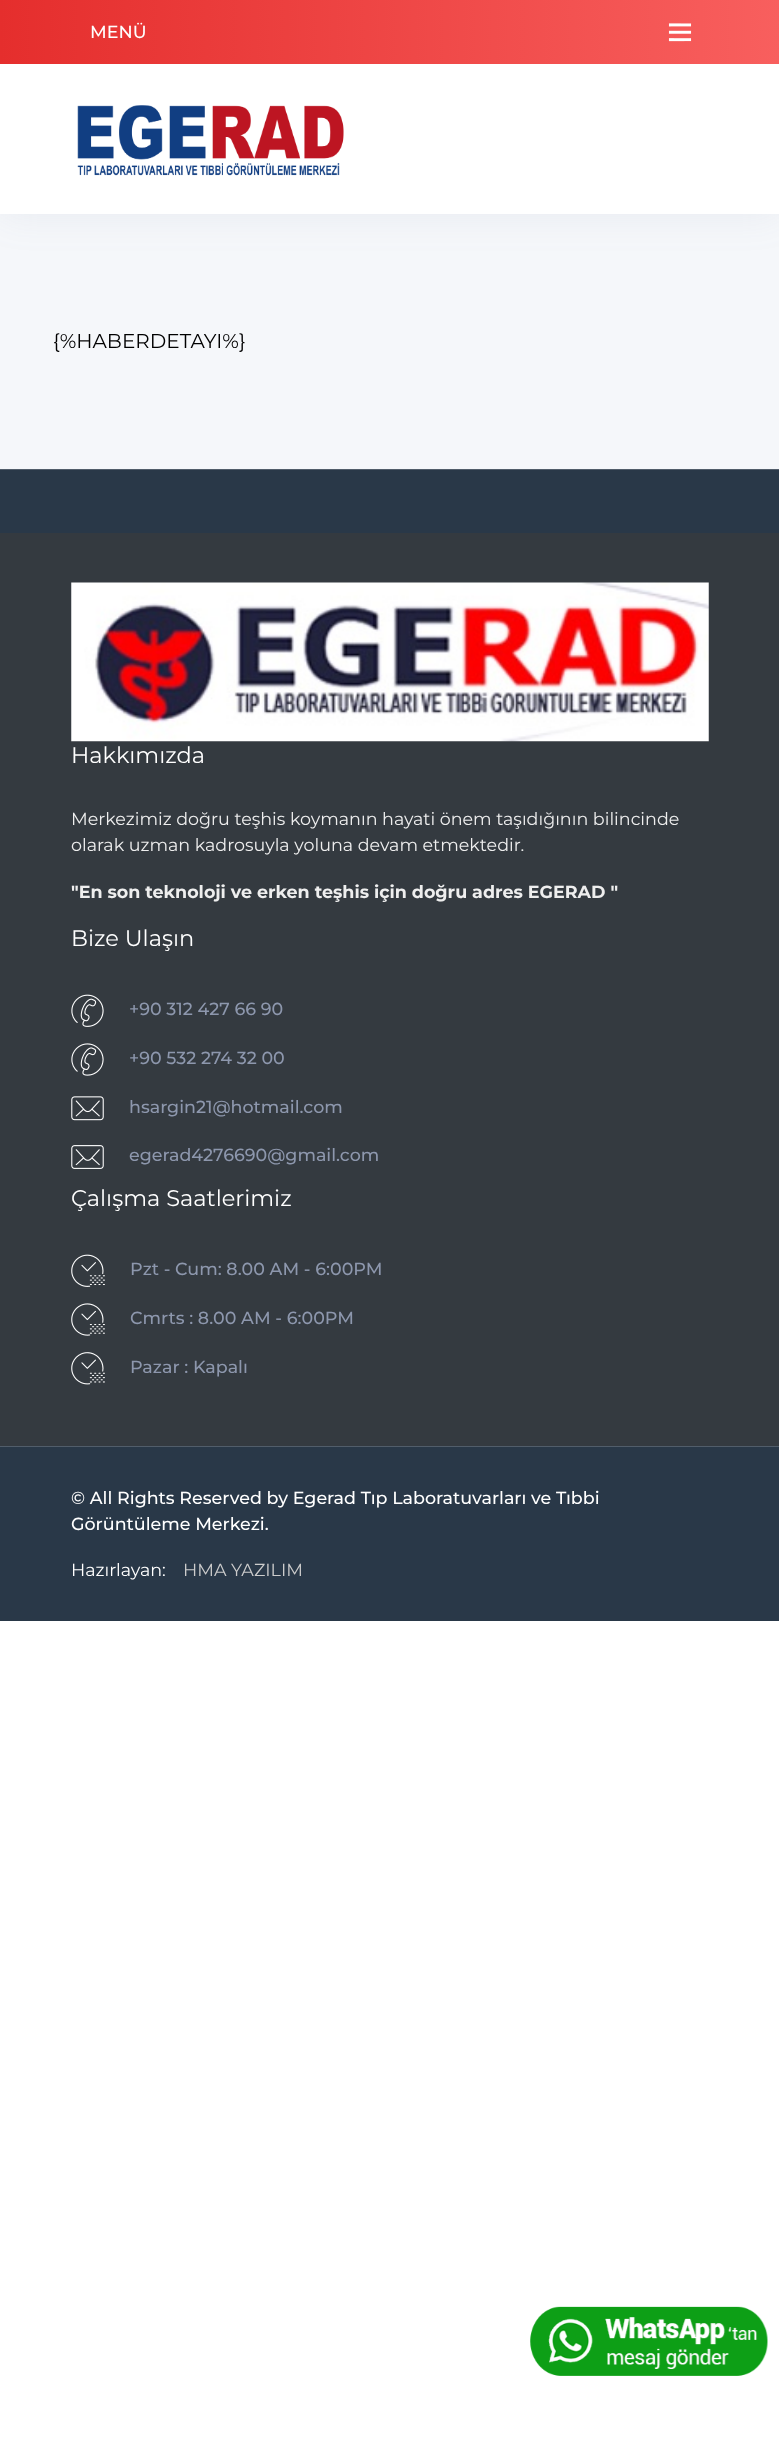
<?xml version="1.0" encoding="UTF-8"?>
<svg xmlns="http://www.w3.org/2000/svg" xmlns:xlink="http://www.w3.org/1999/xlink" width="779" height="2459">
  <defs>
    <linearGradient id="g1" gradientUnits="userSpaceOnUse" x1="0" y1="32" x2="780" y2="32"><stop offset="0" stop-color="#e52e2d" /><stop offset="1" stop-color="#f85f5e" /></linearGradient>
  </defs>
  <rect width="100%" height="100%" fill="#ffffff" />
  <rect y="214" width="779" height="255" fill="#f5f7fa" />
  <rect width="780" height="214" fill="#73809d" fill-opacity="0.1" filter="blur(19px)" />
  <rect y="64" width="779" height="150" fill="#ffffff" />
  <rect width="779" height="64" fill="url(#g1)" />
  <image x="668" y="23" width="24" height="19" xlink:href="image1.png" />
  <image x="77" y="105" width="267" height="71" xlink:href="image2.png" />
  <rect y="533" width="779" height="913" fill="#343a40" />
  <rect y="470" width="779" height="63" fill="#293848" />
  <rect y="469" width="779" height="1" fill="#515d6a" />
  <image x="71" y="582" width="638" height="160" xlink:href="image3.png" />
  <image x="71" y="994" width="33" height="33" xlink:href="image4.png" />
  <image x="71" y="1043" width="33" height="33" xlink:href="image5.png" />
  <image x="71" y="1096" width="33" height="25" xlink:href="image6.png" />
  <image x="71" y="1145" width="33" height="24" xlink:href="image7.png" />
  <image x="71" y="1254" width="34" height="33" xlink:href="image8.png" />
  <image x="71" y="1303" width="34" height="33" xlink:href="image9.png" />
  <image x="71" y="1352" width="34" height="33" xlink:href="image10.png" />
  <rect y="1447" width="779" height="174" fill="#293848" />
  <rect y="1446" width="779" height="1" fill="#515d6a" />
  <image x="530" y="2306" width="238" height="70" xlink:href="image11.png" />
  <text x="90" y="38" style="font-family: Montserrat; font-size: 17.5px; font-weight: 500; fill: #ffffff">MENÜ</text>
  <text x="53" y="348" style="font-family: Montserrat; font-size: 20px; fill: #000000">{%HABERDETAYI%}</text>
  <text x="71" y="763" style="font-family: Montserrat; font-size: 22.5px; fill: #ffffff">Hakkımızda</text>
  <text x="71" y="825" style="font-family: Montserrat; font-size: 17.5px; fill: #eeeeee">Merkezimiz doğru teşhis koymanın hayati önem taşıdığının bilincinde</text>
  <text x="71" y="851" style="font-family: Montserrat; font-size: 17.5px; fill: #eeeeee">olarak uzman kadrosuyla yoluna devam etmektedir.</text>
  <text x="71" y="898" style="font-family: Montserrat; font-size: 17.5px; font-weight: bold; fill: #eeeeee">"En son teknoloji ve erken teşhis için doğru adres EGERAD "</text>
  <text x="71" y="946" style="font-family: Montserrat; font-size: 22.5px; fill: #ffffff">Bize Ulaşın</text>
  <text x="129" y="1015" style="font-family: Montserrat; font-size: 17.5px; font-weight: 500; fill: #8d97ad">+90 312 427 66 90</text>
  <text x="129" y="1064" style="font-family: Montserrat; font-size: 17.5px; font-weight: 500; fill: #8d97ad">+90 532 274 32 00</text>
  <text x="129" y="1113" style="font-family: Montserrat; font-size: 17.5px; font-weight: 500; fill: #8d97ad">hsargin21@hotmail.com</text>
  <text x="129" y="1161" style="font-family: Montserrat; font-size: 17.5px; font-weight: 500; fill: #8d97ad">egerad4276690@gmail.com</text>
  <text x="71" y="1206" style="font-family: Montserrat; font-size: 22.5px; fill: #ffffff">Çalışma Saatlerimiz</text>
  <text x="130" y="1275" style="font-family: Montserrat; font-size: 17.5px; font-weight: 500; fill: #8d97ad">Pzt - Cum: 8.00 AM - 6:00PM</text>
  <text x="130" y="1324" style="font-family: Montserrat; font-size: 17.5px; font-weight: 500; fill: #8d97ad">Cmrts : 8.00 AM - 6:00PM</text>
  <text x="130" y="1373" style="font-family: Montserrat; font-size: 17.5px; font-weight: 500; fill: #8d97ad">Pazar : Kapalı</text>
  <text x="71" y="1504" style="font-family: Montserrat; font-size: 17.5px; font-weight: 500; fill: #ffffff">© All Rights Reserved by Egerad Tıp Laboratuvarları ve Tıbbi</text>
  <text x="71" y="1530" style="font-family: Montserrat; font-size: 17.5px; font-weight: 500; fill: #ffffff">Görüntüleme Merkezi.</text>
  <text x="71" y="1576" style="font-family: Montserrat; font-size: 17.5px; fill: #ffffff">Hazırlayan:</text>
  <text x="183" y="1576" style="font-family: Montserrat; font-size: 17.5px; fill: #cccccc">HMA YAZILIM</text>
</svg>
